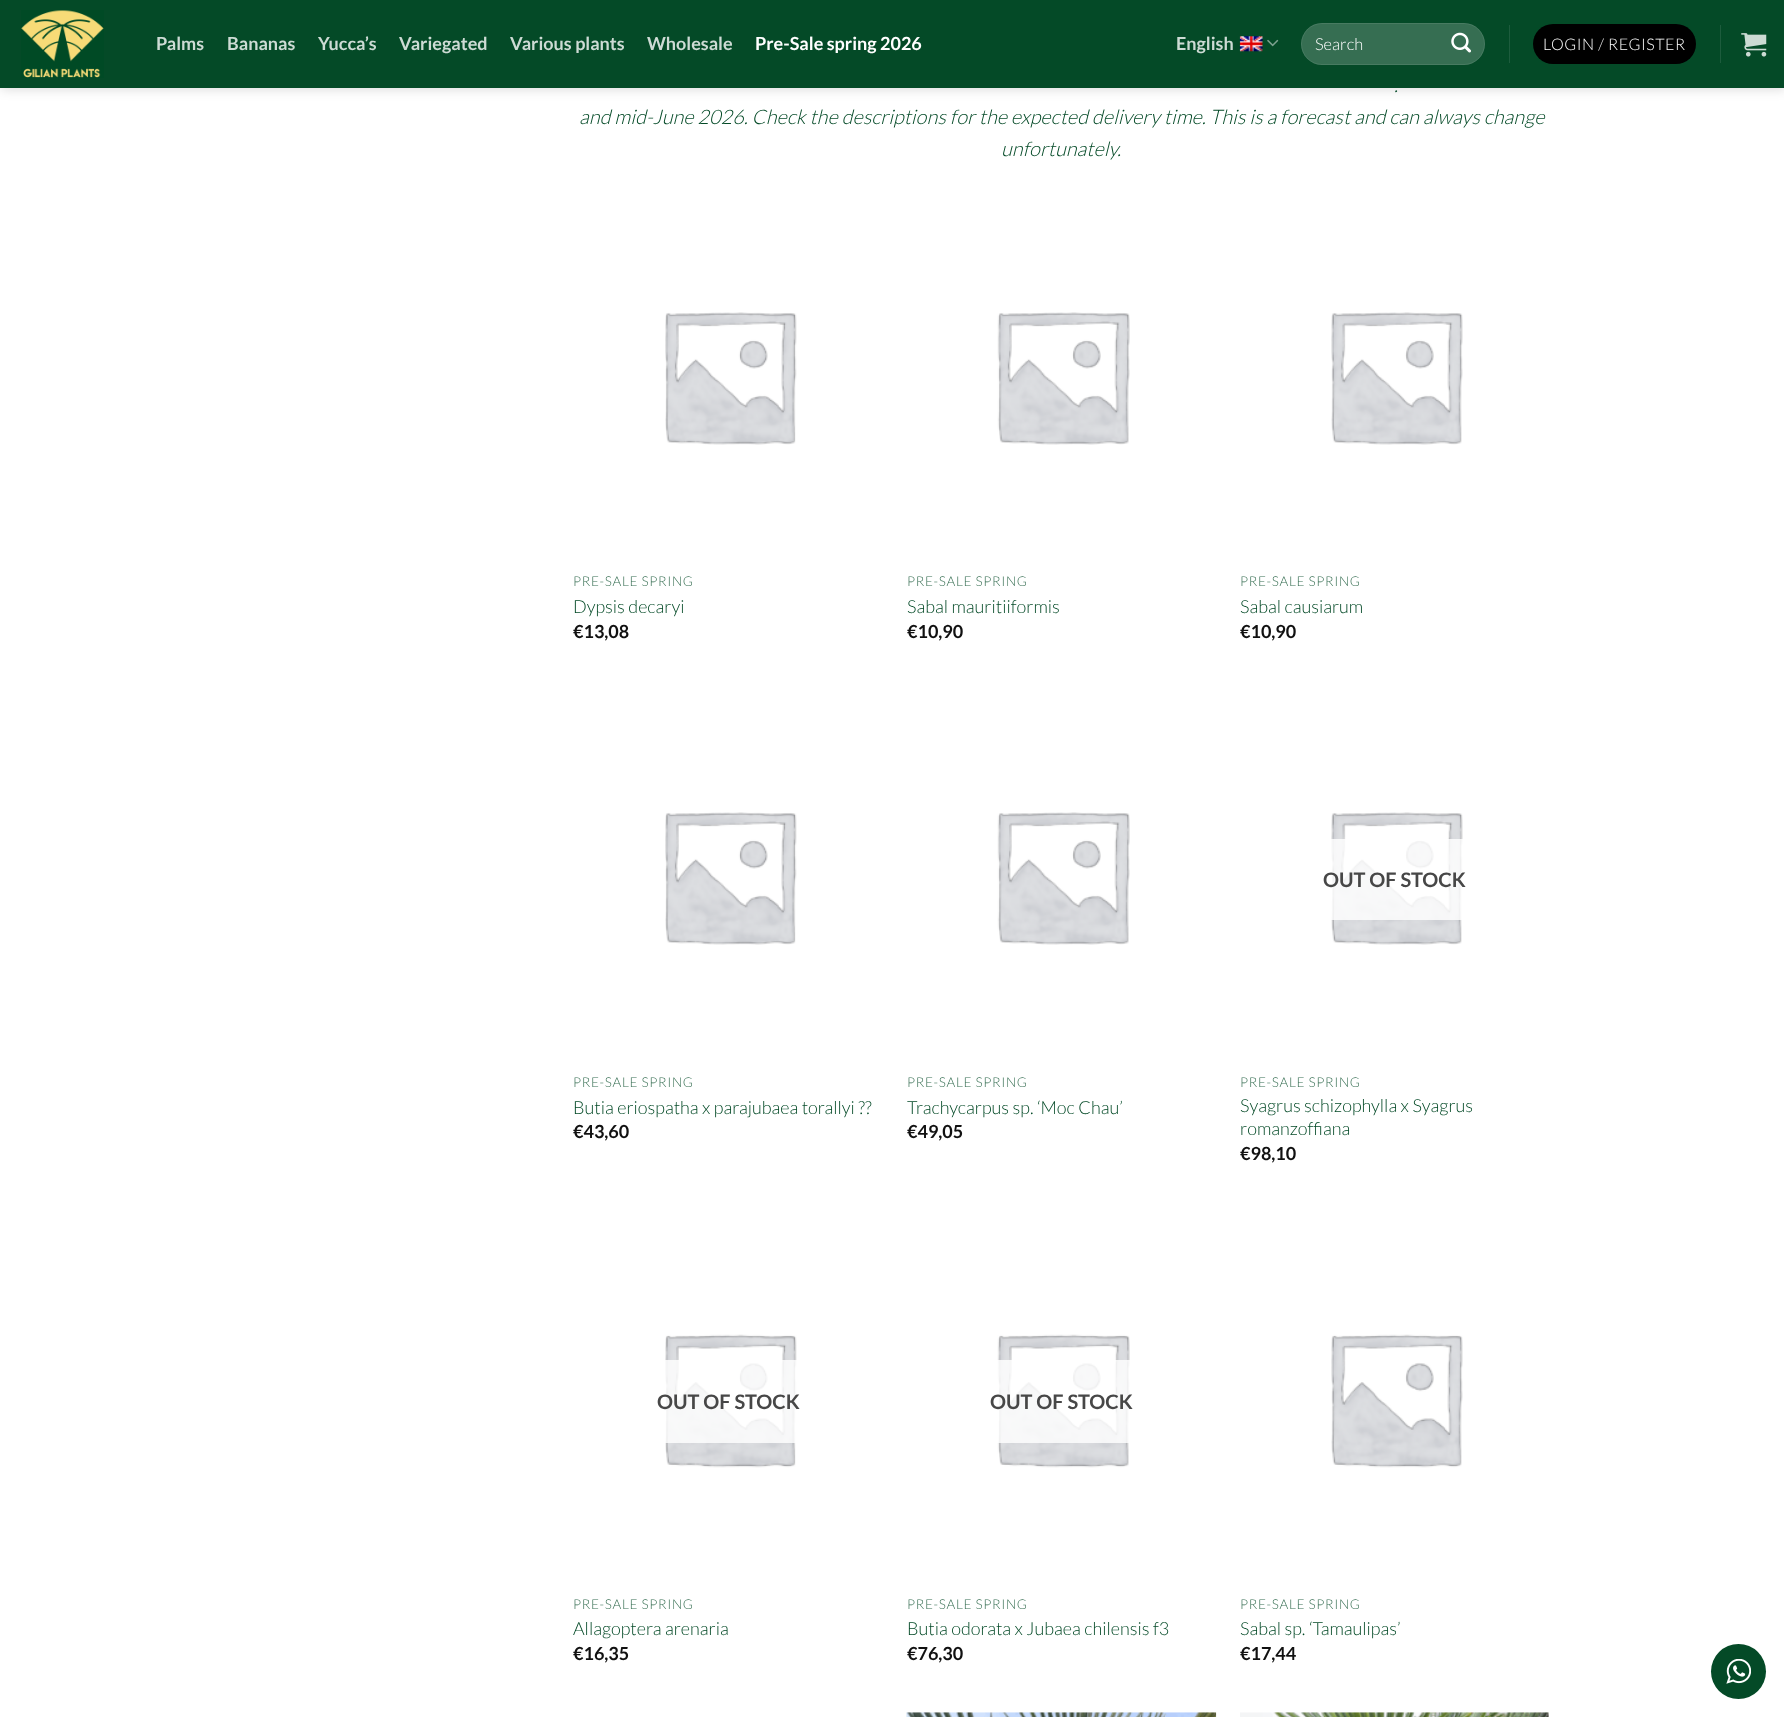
<?xml version="1.0" encoding="UTF-8"?>
<svg xmlns="http://www.w3.org/2000/svg" xmlns:xlink="http://www.w3.org/1999/xlink" width="1784" height="1717">
  <rect width="100%" height="100%" fill="#ffffff" />
  <rect x="1" y="1" width="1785" height="88" fill="#000000" fill-opacity="0.15" filter="blur(6px)" />
  <rect width="1784" height="88" fill="#044a27" />
  <image x="21" y="10" width="83" height="68" xlink:href="image1.png" />
  <image x="1239" y="36" width="24" height="16" xlink:href="image2.png" />
  <image x="1267" y="39" width="12" height="8" xlink:href="image3.png" />
  <rect x="1301" y="23" width="184" height="42" rx="21" fill="#366e52" />
  <rect x="1301.5" y="23.5" width="183" height="41" rx="20.5" fill="none" stroke="#ffffff" stroke-opacity="0.09" />
  <image x="1451" y="32" width="20" height="21" xlink:href="image4.png" />
  <rect x="1509" y="25" width="1" height="38" fill="#1d5c3d" />
  <rect x="1533" y="24" width="163" height="40" rx="20" fill="#000000" />
  <rect x="1720" y="25" width="1" height="38" fill="#1d5c3d" />
  <image x="1741" y="33" width="26" height="24" xlink:href="image5.png" />
  <image x="665" y="312" width="132" height="133" xlink:href="image6.png" />
  <image x="997" y="312" width="133" height="133" xlink:href="image7.png" />
  <image x="1331" y="312" width="132" height="133" xlink:href="image8.png" />
  <image x="665" y="812" width="132" height="133" xlink:href="image6.png" />
  <image x="997" y="812" width="133" height="133" xlink:href="image7.png" />
  <image x="1331" y="812" width="132" height="133" xlink:href="image8.png" />
  <rect x="1331" y="839" width="132" height="81" fill="#ffffff" fill-opacity="0.81" />
  <image x="665" y="1334" width="132" height="134" xlink:href="image9.png" />
  <rect x="665" y="1360" width="132" height="83" fill="#ffffff" fill-opacity="0.81" />
  <image x="997" y="1334" width="133" height="134" xlink:href="image10.png" />
  <rect x="997" y="1360" width="133" height="83" fill="#ffffff" fill-opacity="0.81" />
  <image x="1331" y="1334" width="132" height="134" xlink:href="image11.png" />
  <image x="906" y="1712" width="311" height="5" xlink:href="image12.png" />
  <image x="1240" y="1712" width="309" height="5" xlink:href="image13.png" />
  <circle cx="1738.5" cy="1671.5" r="27.5" fill="#044a27" />
  <image x="1726" y="1659" width="25" height="25" xlink:href="image14.png" />
  <text x="156" y="50" style="font-family: Lato; font-size: 18px; font-weight: bold; fill: #cddbd4">Palms</text>
  <text x="227" y="50" style="font-family: Lato; font-size: 18px; font-weight: bold; fill: #cddbd4">Bananas</text>
  <text x="318" y="50" style="font-family: Lato; font-size: 18px; font-weight: bold; fill: #cddbd4">Yucca’s</text>
  <text x="399" y="50" style="font-family: Lato; font-size: 18px; font-weight: bold; fill: #cddbd4">Variegated</text>
  <text x="510" y="50" style="font-family: Lato; font-size: 18px; font-weight: bold; fill: #cddbd4">Various plants</text>
  <text x="647" y="50" style="font-family: Lato; font-size: 18px; font-weight: bold; fill: #cddbd4">Wholesale</text>
  <text x="755" y="50" style="font-family: Lato; font-size: 18px; font-weight: bold; fill: #ffffff">Pre-Sale spring 2026</text>
  <text x="1176" y="50" style="font-family: Lato; font-size: 18px; font-weight: bold; fill: #cddbd4">English</text>
  <text x="1315" y="50" style="font-family: Lato; font-size: 16.5px; font-weight: 300; fill: #ffffff">Search</text>
  <text x="1543" y="50" style="font-family: Lato; font-size: 16px; font-weight: 300; letter-spacing: 0.5px; fill: #ffffff">LOGIN / REGISTER</text>
  <text x="1394" y="92" style="font-family: Lato; font-size: 20px; font-weight: 300; font-style: italic; fill: #044a27">.</text>
  <text x="579" y="124" style="font-family: Lato; font-size: 20px; font-weight: 300; font-style: italic; fill: #044a27">and mid-June 2026. Check the descriptions for the expected delivery time. This is a forecast and can always change</text>
  <text x="1001" y="156" style="font-family: Lato; font-size: 20px; font-weight: 300; font-style: italic; fill: #044a27">unfortunately.</text>
  <text x="573" y="586" style="font-family: Lato; font-size: 13.5px; font-weight: 300; letter-spacing: 0.7px; fill: #366e52">PRE-SALE SPRING</text>
  <text x="573" y="613" style="font-family: Lato; font-size: 18px; font-weight: 300; fill: #044a27">Dypsis decaryi</text>
  <text x="573" y="638" style="font-family: Lato; font-size: 18px; font-weight: bold; fill: #111111">€13,08</text>
  <text x="907" y="586" style="font-family: Lato; font-size: 13.5px; font-weight: 300; letter-spacing: 0.7px; fill: #366e52">PRE-SALE SPRING</text>
  <text x="907" y="613" style="font-family: Lato; font-size: 18px; font-weight: 300; fill: #044a27">Sabal mauritiiformis</text>
  <text x="907" y="638" style="font-family: Lato; font-size: 18px; font-weight: bold; fill: #111111">€10,90</text>
  <text x="1240" y="586" style="font-family: Lato; font-size: 13.5px; font-weight: 300; letter-spacing: 0.7px; fill: #366e52">PRE-SALE SPRING</text>
  <text x="1240" y="613" style="font-family: Lato; font-size: 18px; font-weight: 300; fill: #044a27">Sabal causiarum</text>
  <text x="1240" y="638" style="font-family: Lato; font-size: 18px; font-weight: bold; fill: #111111">€10,90</text>
  <text x="573" y="1087" style="font-family: Lato; font-size: 13.5px; font-weight: 300; letter-spacing: 0.7px; fill: #366e52">PRE-SALE SPRING</text>
  <text x="573" y="1114" style="font-family: Lato; font-size: 18px; font-weight: 300; fill: #044a27">Butia eriospatha x parajubaea torallyi ??</text>
  <text x="573" y="1138" style="font-family: Lato; font-size: 18px; font-weight: bold; fill: #111111">€43,60</text>
  <text x="907" y="1087" style="font-family: Lato; font-size: 13.5px; font-weight: 300; letter-spacing: 0.7px; fill: #366e52">PRE-SALE SPRING</text>
  <text x="907" y="1114" style="font-family: Lato; font-size: 18px; font-weight: 300; fill: #044a27">Trachycarpus sp. ‘Moc Chau’</text>
  <text x="907" y="1138" style="font-family: Lato; font-size: 18px; font-weight: bold; fill: #111111">€49,05</text>
  <text x="1323" y="887" style="font-family: Lato; font-size: 20px; font-weight: bold; fill: #474747">OUT OF STOCK</text>
  <text x="1240" y="1087" style="font-family: Lato; font-size: 13.5px; font-weight: 300; letter-spacing: 0.7px; fill: #366e52">PRE-SALE SPRING</text>
  <text x="1240" y="1112" style="font-family: Lato; font-size: 18px; font-weight: 300; fill: #044a27">Syagrus schizophylla x Syagrus</text>
  <text x="1240" y="1135" style="font-family: Lato; font-size: 18px; font-weight: 300; fill: #044a27">romanzoffiana</text>
  <text x="1240" y="1160" style="font-family: Lato; font-size: 18px; font-weight: bold; fill: #111111">€98,10</text>
  <text x="657" y="1409" style="font-family: Lato; font-size: 20px; font-weight: bold; fill: #474747">OUT OF STOCK</text>
  <text x="573" y="1609" style="font-family: Lato; font-size: 13.5px; font-weight: 300; letter-spacing: 0.7px; fill: #366e52">PRE-SALE SPRING</text>
  <text x="573" y="1635" style="font-family: Lato; font-size: 18px; font-weight: 300; fill: #044a27">Allagoptera arenaria</text>
  <text x="573" y="1660" style="font-family: Lato; font-size: 18px; font-weight: bold; fill: #111111">€16,35</text>
  <text x="990" y="1409" style="font-family: Lato; font-size: 20px; font-weight: bold; fill: #474747">OUT OF STOCK</text>
  <text x="907" y="1609" style="font-family: Lato; font-size: 13.5px; font-weight: 300; letter-spacing: 0.7px; fill: #366e52">PRE-SALE SPRING</text>
  <text x="907" y="1635" style="font-family: Lato; font-size: 18px; font-weight: 300; fill: #044a27">Butia odorata x Jubaea chilensis f3</text>
  <text x="907" y="1660" style="font-family: Lato; font-size: 18px; font-weight: bold; fill: #111111">€76,30</text>
  <text x="1240" y="1609" style="font-family: Lato; font-size: 13.5px; font-weight: 300; letter-spacing: 0.7px; fill: #366e52">PRE-SALE SPRING</text>
  <text x="1240" y="1635" style="font-family: Lato; font-size: 18px; font-weight: 300; fill: #044a27">Sabal sp. ‘Tamaulipas’</text>
  <text x="1240" y="1660" style="font-family: Lato; font-size: 18px; font-weight: bold; fill: #111111">€17,44</text>
</svg>
